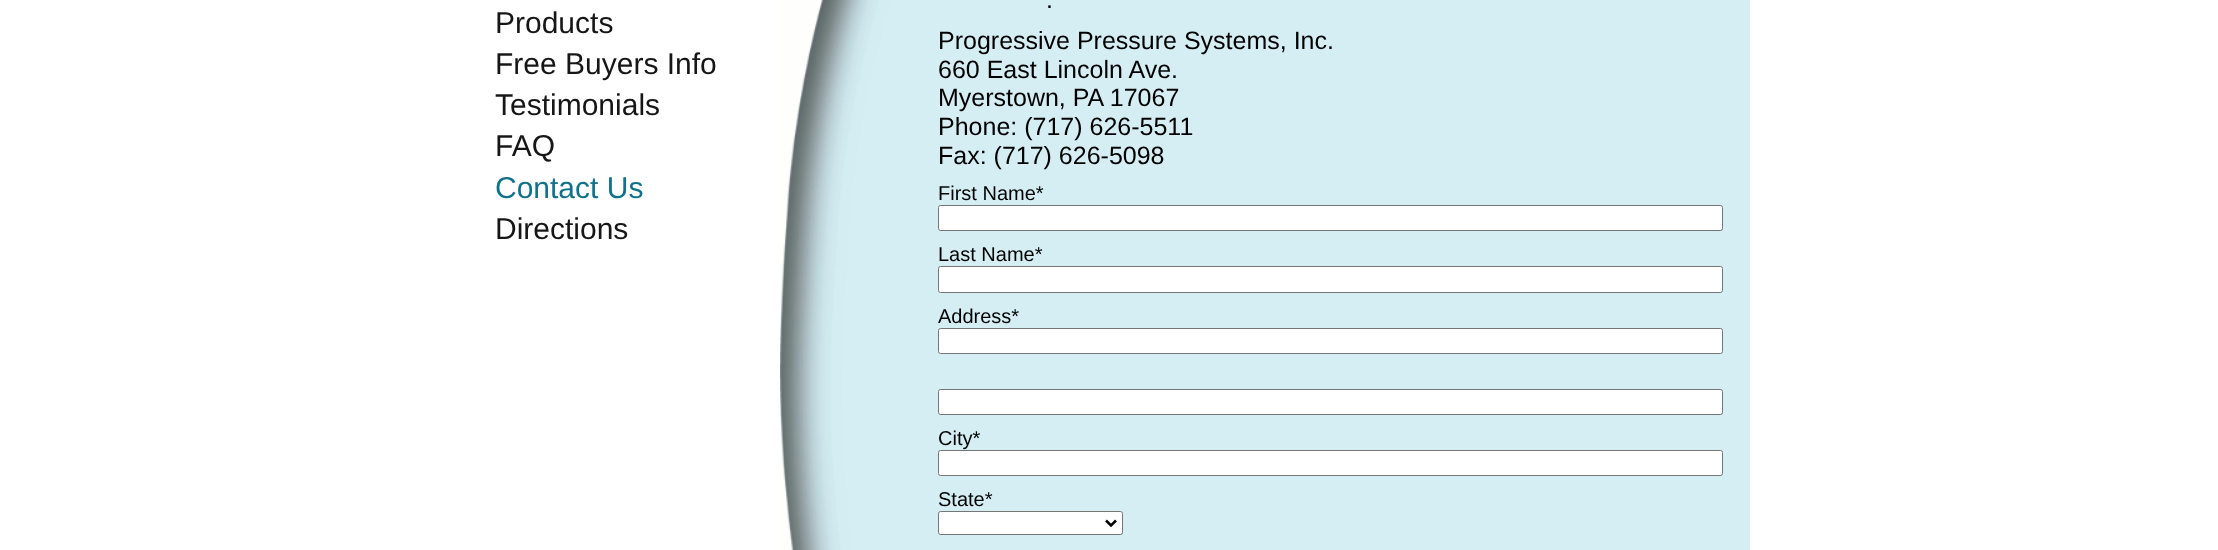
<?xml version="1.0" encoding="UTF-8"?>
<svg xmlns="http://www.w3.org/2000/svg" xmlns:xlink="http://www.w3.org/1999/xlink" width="2218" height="550">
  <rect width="100%" height="100%" fill="#ffffff" />
  <image x="780" y="0" width="970" height="550" xlink:href="image1.png" />
  <rect x="938.5" y="205.5" width="784" height="25" rx="2" fill="#ffffff" stroke="#767676" />
  <rect x="938.5" y="266.5" width="784" height="26" rx="2" fill="#ffffff" stroke="#767676" />
  <rect x="938.5" y="328.5" width="784" height="25" rx="2" fill="#ffffff" stroke="#767676" />
  <rect x="938.5" y="389.5" width="784" height="25" rx="2" fill="#ffffff" stroke="#767676" />
  <rect x="938.5" y="450.5" width="784" height="25" rx="2" fill="#ffffff" stroke="#767676" />
  <rect x="938.5" y="511.5" width="184" height="23" rx="2" fill="#ffffff" stroke="#767676" />
  <path d="M 1106 520.5 l 5 5 l 5 -5" fill="none" stroke="#000000" stroke-width="2.5" />
  <text x="495" y="33" style="font-family: Liberation Sans; font-size: 30px; fill: #161616">Products</text>
  <text x="495" y="74" style="font-family: Liberation Sans; font-size: 30px; fill: #161616">Free Buyers Info</text>
  <text x="495" y="115" style="font-family: Liberation Sans; font-size: 30px; fill: #161616">Testimonials</text>
  <text x="495" y="156" style="font-family: Liberation Sans; font-size: 30px; fill: #161616">FAQ</text>
  <text x="495" y="198" style="font-family: Liberation Sans; font-size: 30px; fill: #10728a">Contact Us</text>
  <text x="495" y="239" style="font-family: Liberation Sans; font-size: 30px; fill: #161616">Directions</text>
  <text x="1046" y="8" style="font-family: Liberation Sans; font-size: 25px; fill: #000000">.</text>
  <text x="938" y="49" style="font-family: Liberation Sans; font-size: 25px; fill: #000000">Progressive Pressure Systems, Inc.</text>
  <text x="938" y="78" style="font-family: Liberation Sans; font-size: 25px; fill: #000000">660 East Lincoln Ave.</text>
  <text x="938" y="106" style="font-family: Liberation Sans; font-size: 25px; fill: #000000">Myerstown, PA 17067</text>
  <text x="938" y="135" style="font-family: Liberation Sans; font-size: 25px; fill: #000000">Phone: (717) 626-5511</text>
  <text x="938" y="164" style="font-family: Liberation Sans; font-size: 25px; fill: #000000">Fax: (717) 626-5098</text>
  <text x="938" y="200" style="font-family: Liberation Sans; font-size: 20px; fill: #000000">First Name*</text>
  <text x="938" y="261" style="font-family: Liberation Sans; font-size: 20px; fill: #000000">Last Name*</text>
  <text x="938" y="323" style="font-family: Liberation Sans; font-size: 20px; fill: #000000">Address*</text>
  <text x="938" y="445" style="font-family: Liberation Sans; font-size: 20px; fill: #000000">City*</text>
  <text x="938" y="506" style="font-family: Liberation Sans; font-size: 20px; fill: #000000">State*</text>
</svg>
